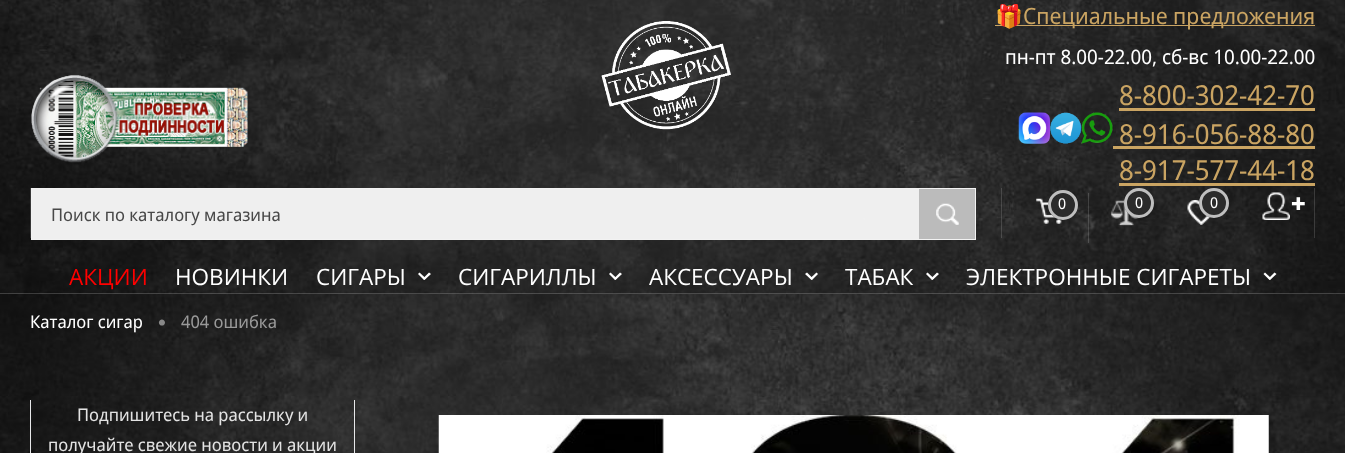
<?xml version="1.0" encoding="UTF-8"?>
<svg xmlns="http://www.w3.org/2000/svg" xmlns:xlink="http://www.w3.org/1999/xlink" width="1345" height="453">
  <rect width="100%" height="100%" fill="#ffffff" />
  <image x="0" y="293" width="1345" height="160" xlink:href="image12.png" />
  <image x="0" y="0" width="1345" height="294" xlink:href="image1.png" />
  <image x="31" y="75" width="217" height="88" xlink:href="image2.png" />
  <image x="601" y="21" width="130" height="109" xlink:href="image3.png" />
  <rect x="995" y="25" width="320" height="1" fill="#caa462" />
  <rect x="1119" y="108" width="196" height="3" fill="#caa462" />
  <image x="1018" y="112" width="32" height="32" xlink:href="image4.png" />
  <image x="1050" y="112" width="32" height="32" xlink:href="image5.png" />
  <image x="1081" y="112" width="32" height="32" xlink:href="image6.png" />
  <rect x="1113" y="146" width="202" height="3" fill="#caa462" />
  <rect x="1119" y="183" width="196" height="3" fill="#caa462" />
  <rect x="1088" y="193" width="1" height="50" fill="#ffffff" fill-opacity="0.15" />
  <image x="1036" y="198" width="26" height="26" xlink:href="image7.png" />
  <circle cx="1063" cy="205" r="15" fill="#2b2b2b" />
  <circle cx="1063" cy="205" r="13.5" fill="none" stroke="#ffffff" stroke-opacity="0.7" stroke-width="3" />
  <image x="1111" y="199" width="30" height="27" xlink:href="image8.png" />
  <circle cx="1139" cy="203" r="15" fill="#2b2b2b" />
  <circle cx="1139" cy="203" r="13.5" fill="none" stroke="#ffffff" stroke-opacity="0.7" stroke-width="3" />
  <image x="1187" y="200" width="24" height="25" xlink:href="image9.png" />
  <circle cx="1214" cy="203" r="15" fill="#2b2b2b" />
  <circle cx="1214" cy="203" r="13.5" fill="none" stroke="#ffffff" stroke-opacity="0.7" stroke-width="3" />
  <rect x="1314" y="188" width="1" height="50" fill="#ffffff" fill-opacity="0.15" />
  <image x="1262" y="192" width="28" height="28" xlink:href="image10.png" />
  <rect x="1001" y="188" width="1" height="50" fill="#ffffff" fill-opacity="0.15" />
  <rect x="30" y="188" width="1" height="50" fill="#ffffff" fill-opacity="0.15" />
  <rect x="32" y="189" width="887" height="50" fill="#f2f2f2" fill-opacity="0.99" />
  <rect x="31.5" y="188.5" width="944" height="51" fill="none" stroke="#f2f2f2" />
  <rect x="919" y="189" width="56" height="50" fill="#bbbbbb" />
  <image x="936" y="203" width="23" height="22" xlink:href="image11.png" />
  <path d="M 423 278.5 l 6 -6 l 2 1.5 l -6.5 6 z" fill="#ffffff" />
  <path d="M 419.5 272.5 l 6.5 6 l -2 1.5 l -6 -6 z" fill="#ffffff" />
  <path d="M 614 278.5 l 6 -6 l 2 1.5 l -6.5 6 z" fill="#ffffff" />
  <path d="M 610.5 272.5 l 6.5 6 l -2 1.5 l -6 -6 z" fill="#ffffff" />
  <path d="M 810 278.5 l 6.5 -6 l 1.5 1.5 l -6 6 z" fill="#ffffff" />
  <path d="M 807 272.5 l 6 6 l -1.5 1.5 l -6.5 -6 z" fill="#ffffff" />
  <path d="M 931 278.5 l 6 -6 l 2 1.5 l -6.5 6 z" fill="#ffffff" />
  <path d="M 927.5 272.5 l 6.5 6 l -2 1.5 l -6 -6 z" fill="#ffffff" />
  <path d="M 1268.5 278.5 l 6 -6 l 2 1.5 l -6.5 6 z" fill="#ffffff" />
  <path d="M 1265 272.5 l 6.5 6 l -2 1.5 l -6 -6 z" fill="#ffffff" />
  <rect x="354" y="400" width="1" height="53" fill="#e7e8ea" />
  <rect x="30" y="400" width="1" height="53" fill="#e7e8ea" />
  <image x="438" y="415" width="831" height="38" xlink:href="image13.png" />
  <text x="995" y="24" style="font-family: Noto Color Emoji; font-size: 22.5px; fill: #caa462">🎁</text>
  <text x="1023" y="24" style="font-family: Noto Sans Display; font-size: 22.5px; fill: #caa462">Специальные предложения</text>
  <text x="1005" y="64" style="font-family: Noto Sans Display; font-size: 20px; fill: #ffffff">пн-пт 8.00-22.00, сб-вс 10.00-22.00</text>
  <text x="1119" y="105" style="font-family: Noto Sans Display; font-size: 27.5px; fill: #caa462">8-800-302-42-70</text>
  <text x="1119" y="144" style="font-family: Noto Sans Display; font-size: 27.5px; fill: #caa462">8-916-056-88-80</text>
  <text x="1119" y="180" style="font-family: Noto Sans Display; font-size: 27.5px; fill: #caa462">8-917-577-44-18</text>
  <text x="1058" y="209" style="font-family: Noto Sans Display; font-size: 15px; fill: #ffffff">0</text>
  <text x="1135" y="208" style="font-family: Noto Sans Display; font-size: 15px; fill: #ffffff">0</text>
  <text x="1210" y="208" style="font-family: Noto Sans Display; font-size: 15px; fill: #ffffff">0</text>
  <text x="1291" y="210" style="font-family: DejaVu Sans; font-size: 17.5px; fill: #ffffff">✚</text>
  <text x="51" y="221" style="font-family: Noto Sans Display; font-size: 17.5px; fill: #484848">Поиск по каталогу магазина</text>
  <text x="69" y="285" style="font-family: Open Sans; font-size: 22.5px; fill: #ff0000">АКЦИИ</text>
  <text x="175" y="285" style="font-family: Open Sans; font-size: 22.5px; fill: #ffffff">НОВИНКИ</text>
  <text x="316" y="285" style="font-family: Open Sans; font-size: 22.5px; fill: #ffffff">СИГАРЫ</text>
  <text x="458" y="285" style="font-family: Open Sans; font-size: 22.5px; fill: #ffffff">СИГАРИЛЛЫ</text>
  <text x="649" y="285" style="font-family: Open Sans; font-size: 22.5px; fill: #ffffff">АКСЕССУАРЫ</text>
  <text x="845" y="285" style="font-family: Open Sans; font-size: 22.5px; fill: #ffffff">ТАБАК</text>
  <text x="966" y="285" style="font-family: Open Sans; font-size: 22.5px; fill: #ffffff">ЭЛЕКТРОННЫЕ СИГАРЕТЫ</text>
  <text x="30" y="328" style="font-family: Noto Sans Display; font-size: 17.5px; fill: #ffffff">Каталог сигар</text>
  <text x="158" y="330" style="font-family: Liberation Sans; font-size: 22.5px; fill: #888888">•</text>
  <text x="181" y="328" style="font-family: Noto Sans Display; font-size: 17.5px; fill: #999999">404 ошибка</text>
  <text x="77" y="421" style="font-family: Noto Sans Display; font-size: 17.5px; fill: #e3e3e3">Подпишитесь на рассылку и</text>
  <text x="48" y="451" style="font-family: Noto Sans Display; font-size: 17.5px; fill: #e3e3e3">получайте свежие новости и акции</text>
</svg>
